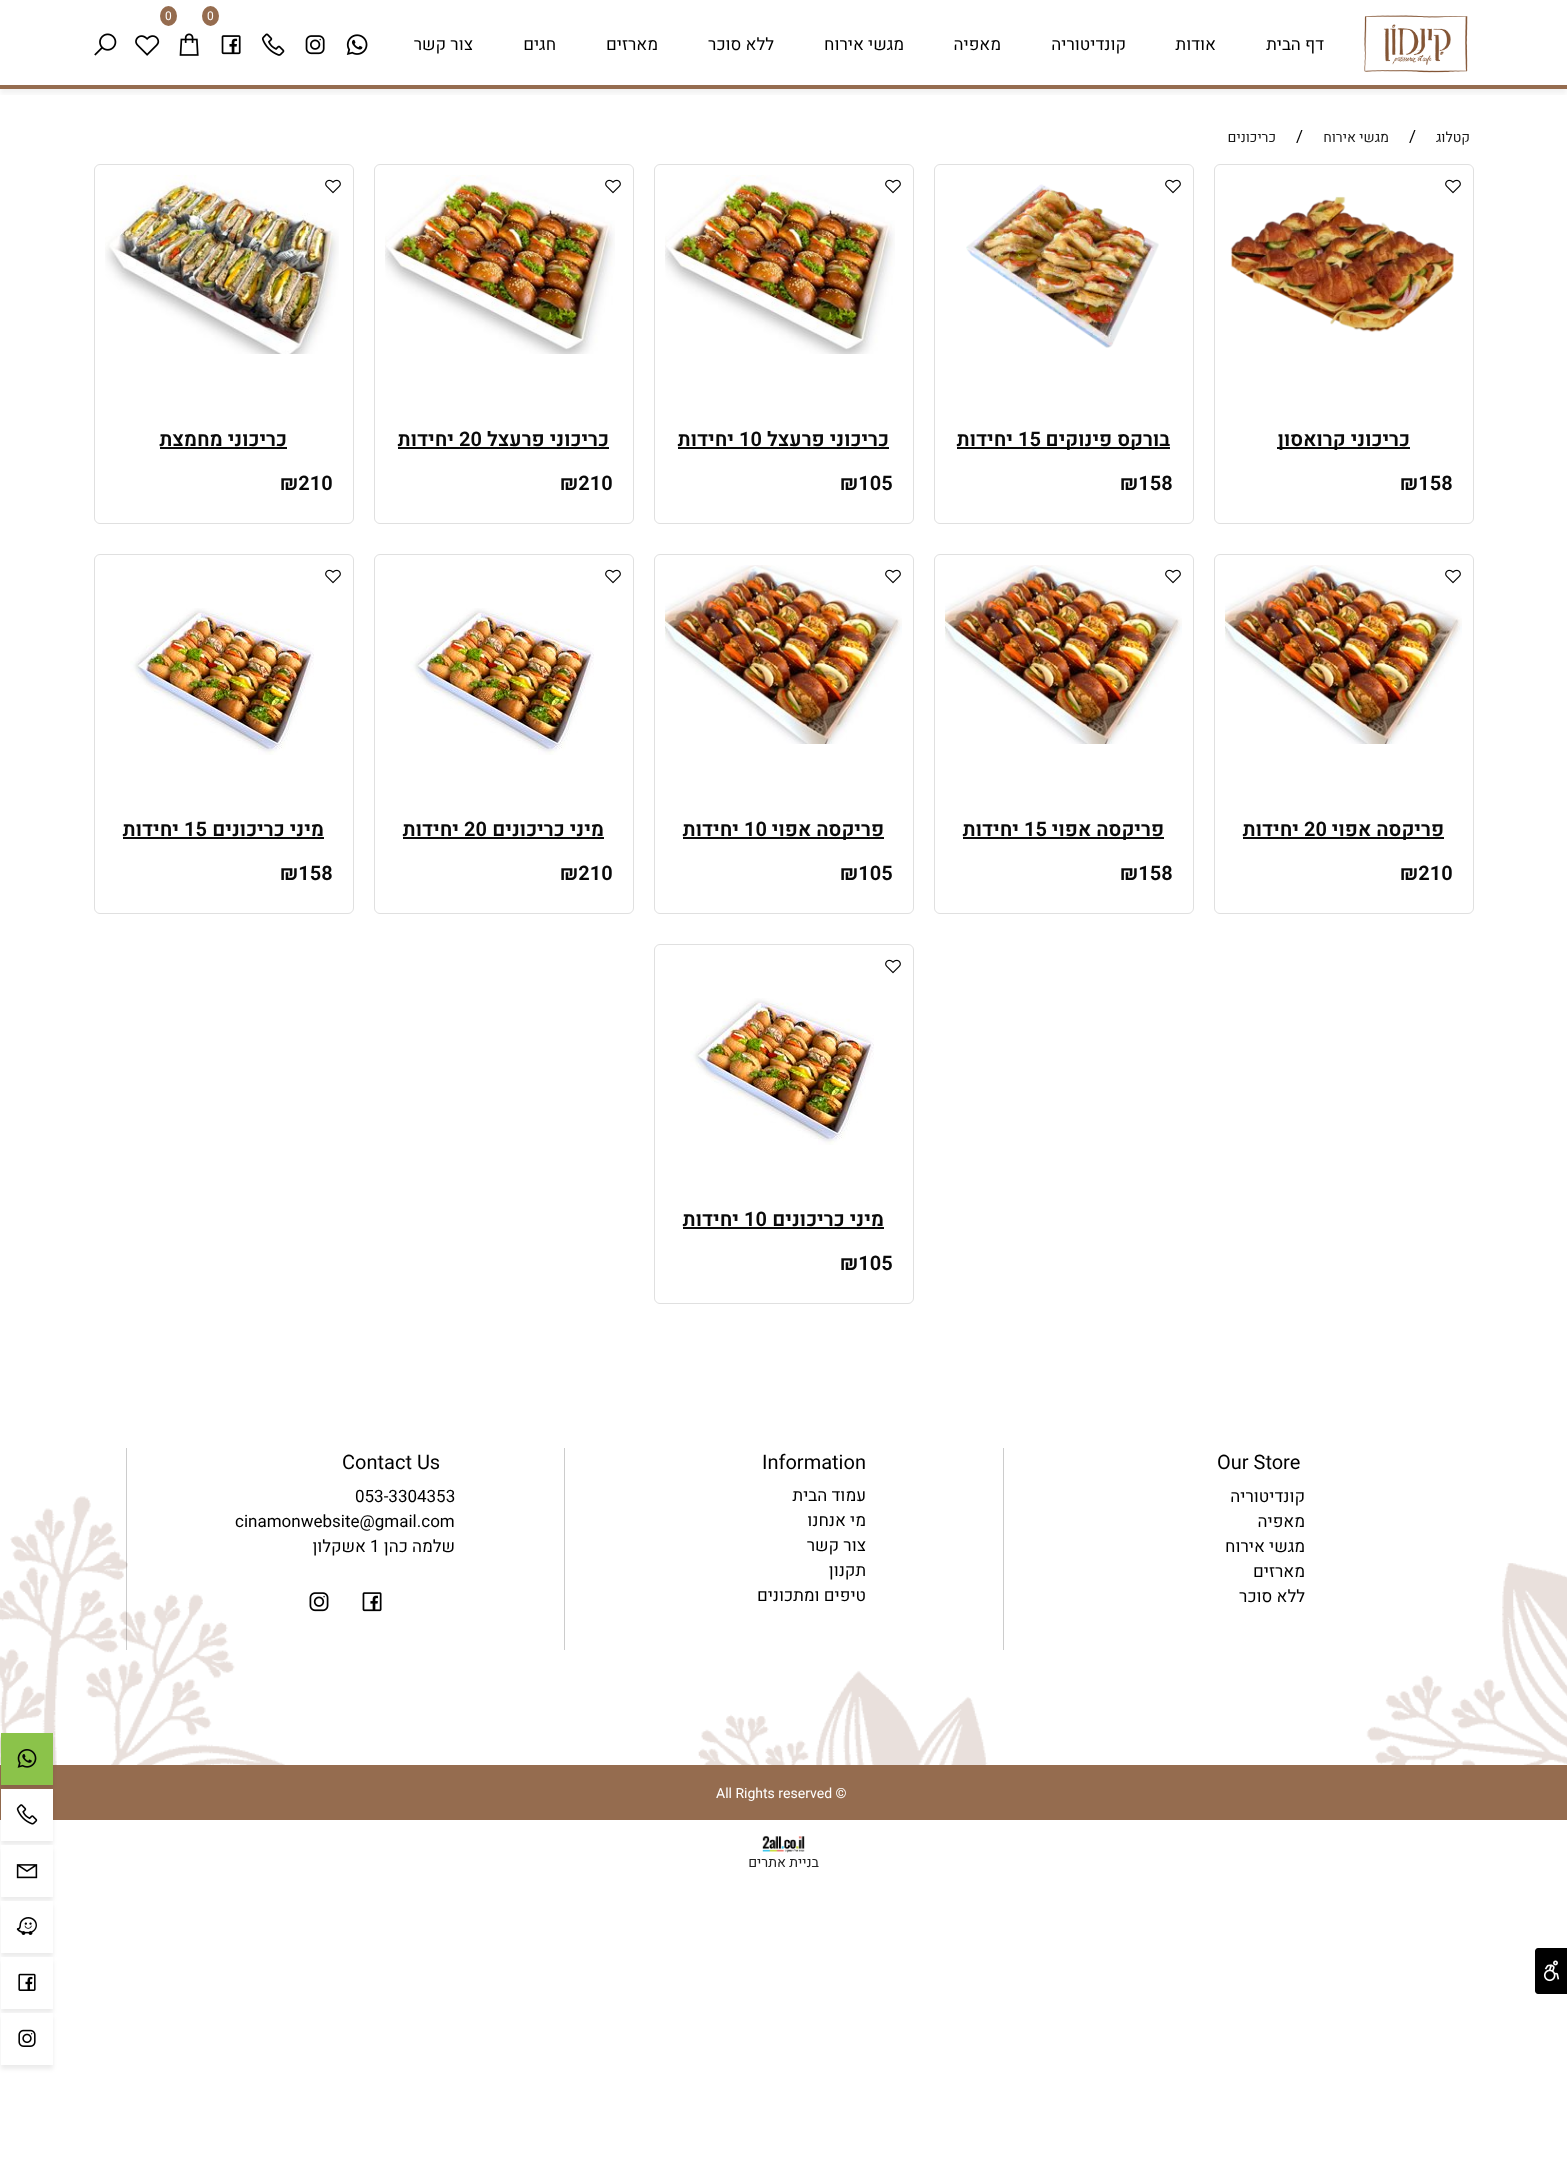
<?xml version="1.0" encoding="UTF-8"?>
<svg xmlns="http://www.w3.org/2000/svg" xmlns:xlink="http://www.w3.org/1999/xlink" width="1567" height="2174">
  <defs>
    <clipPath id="clip1"><rect x="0" y="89" width="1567" height="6" /></clipPath>
  </defs>
  <rect width="100%" height="100%" fill="#ffffff" />
  <g clip-path="url(#clip1)">
    <rect y="5" width="1567" height="89" fill="#000000" fill-opacity="0.05" filter="blur(2.5px)" />
  </g>
  <rect y="85" width="1567" height="4" fill="#956c4f" />
  <image x="1364" y="15" width="104" height="58" xlink:href="image1.png" />
  <image x="346" y="34" width="22" height="21" xlink:href="image2.png" />
  <image x="305" y="35" width="20" height="20" xlink:href="image3.png" />
  <image x="261" y="33" width="24" height="23" xlink:href="image4.png" />
  <image x="221" y="35" width="20" height="20" xlink:href="image5.png" />
  <ellipse cx="210.5" cy="16" rx="8.5" ry="10" fill="#956c4f" />
  <image x="179" y="33" width="20" height="23" xlink:href="image6.png" />
  <ellipse cx="168.5" cy="16" rx="8.5" ry="10" fill="#956c4f" />
  <image x="135" y="35" width="25" height="21" xlink:href="image7.png" />
  <image x="94" y="33" width="23" height="23" xlink:href="image8.png" />
  <rect x="1214.5" y="164.5" width="259" height="359" rx="5.5" fill="none" stroke="#e0e0e0" />
  <image x="1445" y="179" width="16" height="15" xlink:href="image9.png" />
  <image x="1230" y="196" width="224" height="137" xlink:href="image10.png" />
  <rect x="1277" y="447" width="133" height="2" fill="#0a0a0a" />
  <rect x="934.5" y="164.5" width="259" height="359" rx="5.5" fill="none" stroke="#e0e0e0" />
  <image x="1165" y="179" width="16" height="15" xlink:href="image9.png" />
  <image x="966" y="184" width="193" height="164" xlink:href="image11.png" />
  <rect x="957" y="447" width="213" height="2" fill="#0a0a0a" />
  <rect x="654.5" y="164.5" width="259" height="359" rx="5.5" fill="none" stroke="#e0e0e0" />
  <image x="665" y="175" width="230" height="179" xlink:href="image12.png" />
  <image x="885" y="179" width="16" height="15" xlink:href="image9.png" />
  <rect x="678" y="447" width="211" height="2" fill="#0a0a0a" />
  <rect x="374.5" y="164.5" width="259" height="359" rx="5.5" fill="none" stroke="#e0e0e0" />
  <image x="385" y="175" width="230" height="179" xlink:href="image13.png" />
  <image x="605" y="179" width="16" height="15" xlink:href="image9.png" />
  <rect x="398" y="447" width="211" height="2" fill="#0a0a0a" />
  <rect x="94.5" y="164.5" width="259" height="359" rx="5.5" fill="none" stroke="#e0e0e0" />
  <image x="105" y="175" width="234" height="179" xlink:href="image14.png" />
  <image x="325" y="179" width="16" height="15" xlink:href="image9.png" />
  <rect x="160" y="447" width="127" height="2" fill="#0a0a0a" />
  <rect x="1214.5" y="554.5" width="259" height="359" rx="5.5" fill="none" stroke="#e0e0e0" />
  <image x="1225" y="565" width="237" height="179" xlink:href="image15.png" />
  <image x="1445" y="569" width="16" height="15" xlink:href="image9.png" />
  <rect x="1243" y="837" width="201" height="2" fill="#0a0a0a" />
  <rect x="934.5" y="554.5" width="259" height="359" rx="5.5" fill="none" stroke="#e0e0e0" />
  <image x="945" y="565" width="237" height="179" xlink:href="image15.png" />
  <image x="1165" y="569" width="16" height="15" xlink:href="image9.png" />
  <rect x="963" y="837" width="201" height="2" fill="#0a0a0a" />
  <rect x="654.5" y="554.5" width="259" height="359" rx="5.5" fill="none" stroke="#e0e0e0" />
  <image x="665" y="565" width="237" height="179" xlink:href="image15.png" />
  <image x="885" y="569" width="16" height="15" xlink:href="image9.png" />
  <rect x="683" y="837" width="201" height="2" fill="#0a0a0a" />
  <rect x="374.5" y="554.5" width="259" height="359" rx="5.5" fill="none" stroke="#e0e0e0" />
  <image x="605" y="569" width="16" height="15" xlink:href="image9.png" />
  <image x="410" y="608" width="184" height="147" xlink:href="image16.png" />
  <rect x="403" y="837" width="201" height="2" fill="#0a0a0a" />
  <rect x="94.5" y="554.5" width="259" height="359" rx="5.5" fill="none" stroke="#e0e0e0" />
  <image x="325" y="569" width="16" height="15" xlink:href="image9.png" />
  <image x="130" y="608" width="184" height="147" xlink:href="image16.png" />
  <rect x="123" y="837" width="201" height="2" fill="#0a0a0a" />
  <rect x="654.5" y="944.5" width="259" height="359" rx="5.5" fill="none" stroke="#e0e0e0" />
  <image x="885" y="959" width="16" height="15" xlink:href="image9.png" />
  <image x="690" y="998" width="184" height="147" xlink:href="image16.png" />
  <rect x="683" y="1227" width="201" height="2" fill="#0a0a0a" />
  <image x="0" y="1496" width="1567" height="269" xlink:href="image17.png" />
  <rect x="1003" y="1448" width="1" height="202" fill="#cccccc" />
  <rect x="564" y="1448" width="1" height="202" fill="#cccccc" />
  <rect x="126" y="1448" width="1" height="202" fill="#000000" fill-opacity="0.2" />
  <image x="362" y="1592" width="20" height="20" xlink:href="image18.png" />
  <image x="309" y="1592" width="20" height="20" xlink:href="image19.png" />
  <rect y="1765" width="1567" height="55" fill="#956c4f" />
  <image x="762" y="1835" width="43" height="18" xlink:href="image20.png" />
  <rect x="1" y="1737" width="52" height="52" fill="#000000" fill-opacity="0.08" filter="blur(2px)" />
  <rect x="1" y="1733" width="52" height="52" fill="#8bc34a" />
  <image x="17" y="1749" width="20" height="19" xlink:href="image21.png" />
  <rect x="1" y="1793" width="52" height="52" fill="#000000" fill-opacity="0.08" filter="blur(2px)" />
  <rect x="1" y="1789" width="52" height="52" fill="#ffffff" />
  <image x="16" y="1804" width="22" height="21" xlink:href="image22.png" />
  <rect x="1" y="1849" width="52" height="52" fill="#000000" fill-opacity="0.08" filter="blur(2px)" />
  <rect x="1" y="1845" width="52" height="52" fill="#ffffff" />
  <image x="16" y="1864" width="22" height="15" xlink:href="image23.png" />
  <rect x="1" y="1905" width="52" height="52" fill="#000000" fill-opacity="0.08" filter="blur(2px)" />
  <rect x="1" y="1901" width="52" height="52" fill="#ffffff" />
  <image x="16" y="1917" width="21" height="18" xlink:href="image24.png" />
  <rect x="1" y="1961" width="52" height="52" fill="#000000" fill-opacity="0.08" filter="blur(2px)" />
  <rect x="1" y="1957" width="52" height="52" fill="#ffffff" />
  <image x="18" y="1973" width="18" height="18" xlink:href="image25.png" />
  <rect x="1" y="2017" width="52" height="52" fill="#000000" fill-opacity="0.08" filter="blur(2px)" />
  <rect x="1" y="2013" width="52" height="52" fill="#ffffff" />
  <image x="18" y="2029" width="18" height="18" xlink:href="image26.png" />
  <path d="M 1538 1948 h 29 v 46 h -29 c -1.5 0 -3 -1.5 -3 -3 v -40 c 0 -1.5 1.5 -3 3 -3 z" fill="#000000" />
  <image x="1543" y="1960" width="17" height="22" xlink:href="image27.png" />
  <text x="1324" y="50" style="font-family: Heebo; font-size: 17px; direction: rtl; fill: #000000">דף הבית</text>
  <text x="1216" y="50" style="font-family: Heebo; font-size: 17px; direction: rtl; fill: #000000">אודות</text>
  <text x="1126" y="50" style="font-family: Heebo; font-size: 17px; direction: rtl; fill: #000000">קונדיטוריה</text>
  <text x="1001" y="50" style="font-family: Heebo; font-size: 17px; direction: rtl; fill: #000000">מאפיה</text>
  <text x="904" y="50" style="font-family: Heebo; font-size: 17px; direction: rtl; fill: #000000">מגשי אירוח</text>
  <text x="774" y="50" style="font-family: Heebo; font-size: 17px; direction: rtl; fill: #000000">ללא סוכר</text>
  <text x="658" y="50" style="font-family: Heebo; font-size: 17px; direction: rtl; fill: #000000">מארזים</text>
  <text x="556" y="50" style="font-family: Heebo; font-size: 17px; direction: rtl; fill: #000000">חגים</text>
  <text x="473" y="50" style="font-family: Heebo; font-size: 17px; direction: rtl; fill: #000000">צור קשר</text>
  <text x="207" y="20" style="font-family: Heebo; font-size: 12px; fill: #ffffff">0</text>
  <text x="165" y="20" style="font-family: Heebo; font-size: 12px; fill: #ffffff">0</text>
  <text x="1470" y="142" style="font-family: Heebo; font-size: 14px; direction: rtl; fill: #191919">קטלוג</text>
  <text x="1409" y="142" style="font-family: Heebo; font-size: 17px; fill: #000000">/</text>
  <text x="1389" y="142" style="font-family: Heebo; font-size: 14px; direction: rtl; fill: #191919">מגשי אירוח</text>
  <text x="1296" y="142" style="font-family: Heebo; font-size: 17px; fill: #000000">/</text>
  <text x="1276" y="142" style="font-family: Heebo; font-size: 14px; direction: rtl; fill: #191919">כריכונים</text>
  <text x="1410" y="446" style="font-family: Heebo; font-size: 20px; font-weight: 600; direction: rtl; fill: #0a0a0a">כריכוני קרואסון</text>
  <text x="1400" y="490" style="font-family: Heebo; font-size: 20px; font-weight: 600; fill: #0a0a0a">₪158</text>
  <text x="1170" y="446" style="font-family: Heebo; font-size: 20px; font-weight: 600; direction: rtl; fill: #0a0a0a">בורקס פינוקים</text>
  <text x="1018" y="446" style="font-family: Heebo; font-size: 20px; font-weight: 600; fill: #0a0a0a">15</text>
  <text x="1013" y="446" style="font-family: Heebo; font-size: 20px; font-weight: 600; direction: rtl; fill: #0a0a0a">יחידות</text>
  <text x="1120" y="490" style="font-family: Heebo; font-size: 20px; font-weight: 600; fill: #0a0a0a">₪158</text>
  <text x="889" y="446" style="font-family: Heebo; font-size: 20px; font-weight: 600; direction: rtl; fill: #0a0a0a">כריכוני פרעצל</text>
  <text x="739" y="446" style="font-family: Heebo; font-size: 20px; font-weight: 600; fill: #0a0a0a">10</text>
  <text x="734" y="446" style="font-family: Heebo; font-size: 20px; font-weight: 600; direction: rtl; fill: #0a0a0a">יחידות</text>
  <text x="840" y="490" style="font-family: Heebo; font-size: 20px; font-weight: 600; fill: #0a0a0a">₪105</text>
  <text x="609" y="446" style="font-family: Heebo; font-size: 20px; font-weight: 600; direction: rtl; fill: #0a0a0a">כריכוני פרעצל</text>
  <text x="459" y="446" style="font-family: Heebo; font-size: 20px; font-weight: 600; fill: #0a0a0a">20</text>
  <text x="454" y="446" style="font-family: Heebo; font-size: 20px; font-weight: 600; direction: rtl; fill: #0a0a0a">יחידות</text>
  <text x="560" y="490" style="font-family: Heebo; font-size: 20px; font-weight: 600; fill: #0a0a0a">₪210</text>
  <text x="287" y="446" style="font-family: Heebo; font-size: 20px; font-weight: 600; direction: rtl; fill: #0a0a0a">כריכוני מחמצת</text>
  <text x="280" y="490" style="font-family: Heebo; font-size: 20px; font-weight: 600; fill: #0a0a0a">₪210</text>
  <text x="1444" y="836" style="font-family: Heebo; font-size: 20px; font-weight: 600; direction: rtl; fill: #0a0a0a">פריקסה אפוי</text>
  <text x="1304" y="836" style="font-family: Heebo; font-size: 20px; font-weight: 600; fill: #0a0a0a">20</text>
  <text x="1299" y="836" style="font-family: Heebo; font-size: 20px; font-weight: 600; direction: rtl; fill: #0a0a0a">יחידות</text>
  <text x="1400" y="880" style="font-family: Heebo; font-size: 20px; font-weight: 600; fill: #0a0a0a">₪210</text>
  <text x="1164" y="836" style="font-family: Heebo; font-size: 20px; font-weight: 600; direction: rtl; fill: #0a0a0a">פריקסה אפוי</text>
  <text x="1024" y="836" style="font-family: Heebo; font-size: 20px; font-weight: 600; fill: #0a0a0a">15</text>
  <text x="1019" y="836" style="font-family: Heebo; font-size: 20px; font-weight: 600; direction: rtl; fill: #0a0a0a">יחידות</text>
  <text x="1120" y="880" style="font-family: Heebo; font-size: 20px; font-weight: 600; fill: #0a0a0a">₪158</text>
  <text x="884" y="836" style="font-family: Heebo; font-size: 20px; font-weight: 600; direction: rtl; fill: #0a0a0a">פריקסה אפוי</text>
  <text x="744" y="836" style="font-family: Heebo; font-size: 20px; font-weight: 600; fill: #0a0a0a">10</text>
  <text x="739" y="836" style="font-family: Heebo; font-size: 20px; font-weight: 600; direction: rtl; fill: #0a0a0a">יחידות</text>
  <text x="840" y="880" style="font-family: Heebo; font-size: 20px; font-weight: 600; fill: #0a0a0a">₪105</text>
  <text x="604" y="836" style="font-family: Heebo; font-size: 20px; font-weight: 600; direction: rtl; fill: #0a0a0a">מיני כריכונים</text>
  <text x="464" y="836" style="font-family: Heebo; font-size: 20px; font-weight: 600; fill: #0a0a0a">20</text>
  <text x="459" y="836" style="font-family: Heebo; font-size: 20px; font-weight: 600; direction: rtl; fill: #0a0a0a">יחידות</text>
  <text x="560" y="880" style="font-family: Heebo; font-size: 20px; font-weight: 600; fill: #0a0a0a">₪210</text>
  <text x="324" y="836" style="font-family: Heebo; font-size: 20px; font-weight: 600; direction: rtl; fill: #0a0a0a">מיני כריכונים</text>
  <text x="184" y="836" style="font-family: Heebo; font-size: 20px; font-weight: 600; fill: #0a0a0a">15</text>
  <text x="179" y="836" style="font-family: Heebo; font-size: 20px; font-weight: 600; direction: rtl; fill: #0a0a0a">יחידות</text>
  <text x="280" y="880" style="font-family: Heebo; font-size: 20px; font-weight: 600; fill: #0a0a0a">₪158</text>
  <text x="884" y="1226" style="font-family: Heebo; font-size: 20px; font-weight: 600; direction: rtl; fill: #0a0a0a">מיני כריכונים</text>
  <text x="744" y="1226" style="font-family: Heebo; font-size: 20px; font-weight: 600; fill: #0a0a0a">10</text>
  <text x="739" y="1226" style="font-family: Heebo; font-size: 20px; font-weight: 600; direction: rtl; fill: #0a0a0a">יחידות</text>
  <text x="840" y="1270" style="font-family: Heebo; font-size: 20px; font-weight: 600; fill: #0a0a0a">₪105</text>
  <text x="1217" y="1469" style="font-family: Heebo; font-size: 20px; fill: #000000">Our Store</text>
  <text x="1305" y="1502" style="font-family: Heebo; font-size: 17px; direction: rtl; fill: #000000">קונדיטוריה</text>
  <text x="1305" y="1527" style="font-family: Heebo; font-size: 17px; direction: rtl; fill: #000000">מאפיה</text>
  <text x="1305" y="1552" style="font-family: Heebo; font-size: 17px; direction: rtl; fill: #000000">מגשי אירוח</text>
  <text x="1305" y="1577" style="font-family: Heebo; font-size: 17px; direction: rtl; fill: #000000">מארזים</text>
  <text x="1305" y="1602" style="font-family: Heebo; font-size: 17px; direction: rtl; fill: #000000">ללא סוכר</text>
  <text x="762" y="1469" style="font-family: Heebo; font-size: 20px; fill: #000000">Information</text>
  <text x="866" y="1501" style="font-family: Heebo; font-size: 17px; direction: rtl; fill: #000000">עמוד הבית</text>
  <text x="866" y="1526" style="font-family: Heebo; font-size: 17px; direction: rtl; fill: #000000">מי אנחנו</text>
  <text x="866" y="1551" style="font-family: Heebo; font-size: 17px; direction: rtl; fill: #000000">צור קשר</text>
  <text x="866" y="1576" style="font-family: Heebo; font-size: 17px; direction: rtl; fill: #000000">תקנון</text>
  <text x="866" y="1601" style="font-family: Heebo; font-size: 17px; direction: rtl; fill: #000000">טיפים ומתכונים</text>
  <text x="342" y="1469" style="font-family: Heebo; font-size: 20px; fill: #000000">Contact Us</text>
  <text x="355" y="1502" style="font-family: Heebo; font-size: 17px; fill: #000000">053-3304353</text>
  <text x="235" y="1527" style="font-family: Heebo; font-size: 17px; fill: #000000">cinamonwebsite@gmail.com</text>
  <text x="455" y="1552" style="font-family: Heebo; font-size: 17px; direction: rtl; fill: #000000">שלמה כהן</text>
  <text x="370" y="1552" style="font-family: Heebo; font-size: 17px; fill: #000000">1</text>
  <text x="366" y="1552" style="font-family: Heebo; font-size: 17px; direction: rtl; fill: #000000">אשקלון</text>
  <text x="716" y="1798" style="font-family: Heebo; font-size: 14px; fill: #ffffff">All Rights reserved ©</text>
  <text x="819" y="1867" style="font-family: Heebo; font-size: 14px; direction: rtl; fill: #222222">בניית אתרים</text>
</svg>
